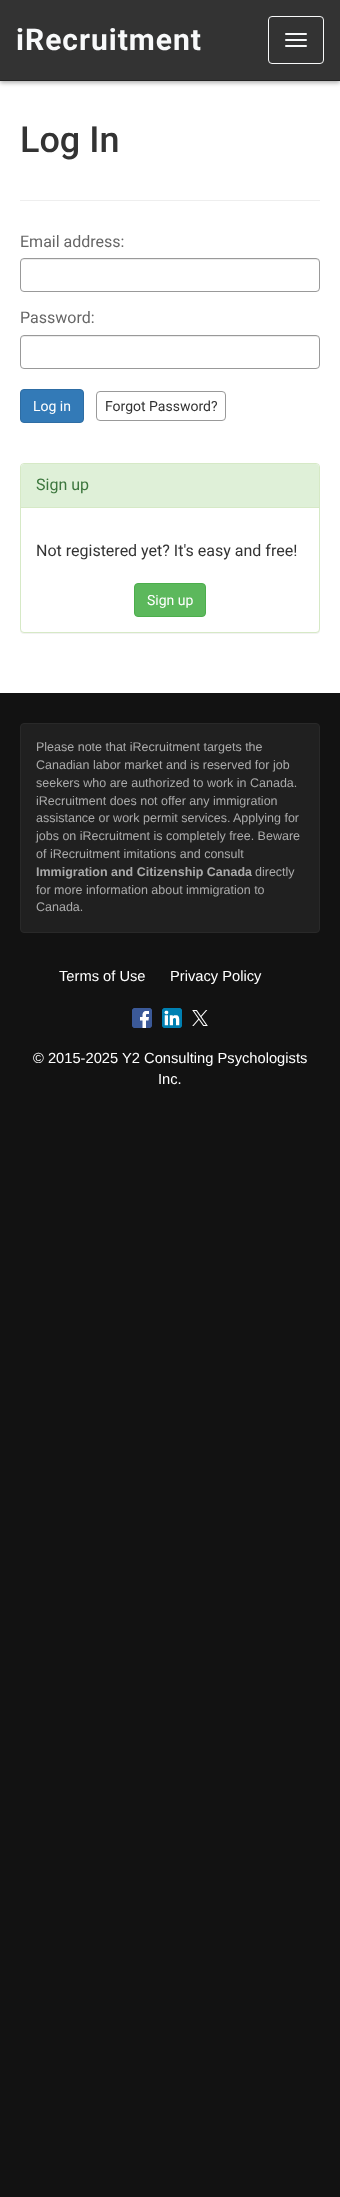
<?xml version="1.0" encoding="UTF-8"?>
<svg xmlns="http://www.w3.org/2000/svg" xmlns:xlink="http://www.w3.org/1999/xlink" width="340" height="2197">
  <rect width="100%" height="100%" fill="#121212" />
  <rect y="81" width="340" height="612" fill="#ffffff" />
  <rect y="2" width="340" height="81" fill="#000000" fill-opacity="0.3" filter="blur(2px)" />
  <rect width="340" height="80" fill="#333333" />
  <rect y="80" width="340" height="1" fill="#222222" />
  <rect x="268.5" y="16.5" width="55" height="47" rx="3.5" fill="none" stroke="#f8f9fa" />
  <rect x="285" y="33" width="22" height="2" rx="1" fill="#f8f9fa" />
  <rect x="285" y="39" width="22" height="2" rx="1" fill="#f8f9fa" />
  <rect x="285" y="45" width="22" height="2" rx="1" fill="#f8f9fa" />
  <rect x="20" y="200" width="300" height="1" fill="#eeeeee" />
  <path d="M 24 260 h 292 c 2 0 3 1 3 3 l -1 -3 l -1 -1 h -293 c -2 0 -3 2 -3 4 c 0 -2 1 -3 3 -3 z" fill="#ececec" />
  <rect x="20.5" y="258.5" width="299" height="33" rx="3.5" fill="none" stroke="#999999" />
  <path d="M 24 337 h 292 c 2 0 3 1 3 3 l -1 -3 l -1 -1 h -293 c -2 0 -3 2 -3 4 c 0 -2 1 -3 3 -3 z" fill="#ececec" />
  <rect x="20.5" y="335.5" width="299" height="33" rx="3.5" fill="none" stroke="#999999" />
  <rect x="20.5" y="389.5" width="63" height="33" rx="3.5" fill="#337ab7" stroke="#2e6da4" />
  <rect x="96.5" y="391.5" width="129" height="29" rx="3.5" fill="none" stroke="#999999" />
  <rect x="20" y="464" width="300" height="170" rx="4" fill="#000000" fill-opacity="0.05" filter="blur(0.5px)" />
  <rect x="20.5" y="463.5" width="299" height="169" rx="3.5" fill="#ffffff" stroke="#d6e9c6" />
  <path d="M 24 464 h 292 c 1.5 0 3 1.5 3 3 v 41 h -298 v -41 c 0 -1.5 1.5 -3 3 -3 z" fill="#dff0d8" />
  <rect x="21" y="507" width="298" height="1" fill="#d6e9c6" />
  <rect x="134.5" y="583.5" width="71" height="33" rx="3.5" fill="#5cb85c" stroke="#4cae4c" />
  <rect x="20.5" y="723.5" width="299" height="209" rx="3.5" fill="#202020" stroke="#292929" />
  <image x="132" y="1008" width="20" height="20" xlink:href="image1.png" />
  <image x="162" y="1008" width="20" height="20" xlink:href="image2.png" />
  <image x="192" y="1010" width="16" height="16" xlink:href="image3.png" />
  <text x="16" y="50" style="font-family: Roboto; font-size: 30px; font-weight: bold; letter-spacing: 1px; fill: #f8f9fa">iRecruitment</text>
  <text x="20" y="152" style="font-family: Roboto; font-size: 36px; font-weight: 500; fill: #333333">Log In</text>
  <text x="20" y="247" style="font-family: Roboto; font-size: 16px; fill: #666666">Email address:</text>
  <text x="20" y="323" style="font-family: Roboto; font-size: 16px; fill: #666666">Password:</text>
  <text x="33" y="411" style="font-family: Roboto; font-size: 14px; fill: #ffffff">Log in</text>
  <text x="105" y="411" style="font-family: Roboto; font-size: 14px; fill: #333333">Forgot Password?</text>
  <text x="36" y="490" style="font-family: Roboto; font-size: 16px; fill: #3c763d">Sign up</text>
  <text x="36" y="556" style="font-family: Roboto; font-size: 16px; fill: #333333">Not registered yet? It's easy and free!</text>
  <text x="147" y="605" style="font-family: Roboto; font-size: 14px; fill: #ffffff">Sign up</text>
  <text x="36" y="751" style="font-family: Liberation Sans; font-size: 12.5px; fill: #aaaaaa">Please note that iRecruitment targets the</text>
  <text x="36" y="769" style="font-family: Liberation Sans; font-size: 12.5px; fill: #aaaaaa">Canadian labor market and is reserved for job</text>
  <text x="36" y="787" style="font-family: Liberation Sans; font-size: 12.5px; fill: #aaaaaa">seekers who are authorized to work in Canada.</text>
  <text x="36" y="805" style="font-family: Liberation Sans; font-size: 12.5px; fill: #aaaaaa">iRecruitment does not offer any immigration</text>
  <text x="36" y="822" style="font-family: Liberation Sans; font-size: 12.5px; fill: #aaaaaa">assistance or work permit services.</text>
  <text x="233" y="822" style="font-family: Liberation Sans; font-size: 12.5px; fill: #aaaaaa">Applying for</text>
  <text x="36" y="840" style="font-family: Liberation Sans; font-size: 12.5px; fill: #aaaaaa">jobs on iRecruitment is completely free. Beware</text>
  <text x="36" y="858" style="font-family: Liberation Sans; font-size: 12.5px; fill: #aaaaaa">of iRecruitment imitations and consult</text>
  <text x="36" y="876" style="font-family: Liberation Sans; font-size: 12.5px; font-weight: bold; fill: #aaaaaa">Immigration and Citizenship Canada</text>
  <text x="255" y="876" style="font-family: Liberation Sans; font-size: 12.5px; fill: #aaaaaa">directly</text>
  <text x="36" y="894" style="font-family: Liberation Sans; font-size: 12.5px; fill: #aaaaaa">for more information about immigration to</text>
  <text x="36" y="911" style="font-family: Liberation Sans; font-size: 12.5px; fill: #aaaaaa">Canada.</text>
  <text x="59" y="981" style="font-family: Liberation Sans; font-size: 14.7px; fill: #ffffff">Terms of Use</text>
  <text x="170" y="981" style="font-family: Liberation Sans; font-size: 14.7px; fill: #ffffff">Privacy Policy</text>
  <text x="33" y="1063" style="font-family: Liberation Sans; font-size: 14.7px; fill: #ffffff">© 2015-2025</text>
  <text x="122" y="1063" style="font-family: Liberation Sans; font-size: 14.7px; fill: #ffffff">Y2 Consulting Psychologists</text>
  <text x="158" y="1084" style="font-family: Liberation Sans; font-size: 14.7px; fill: #ffffff">Inc.</text>
</svg>
